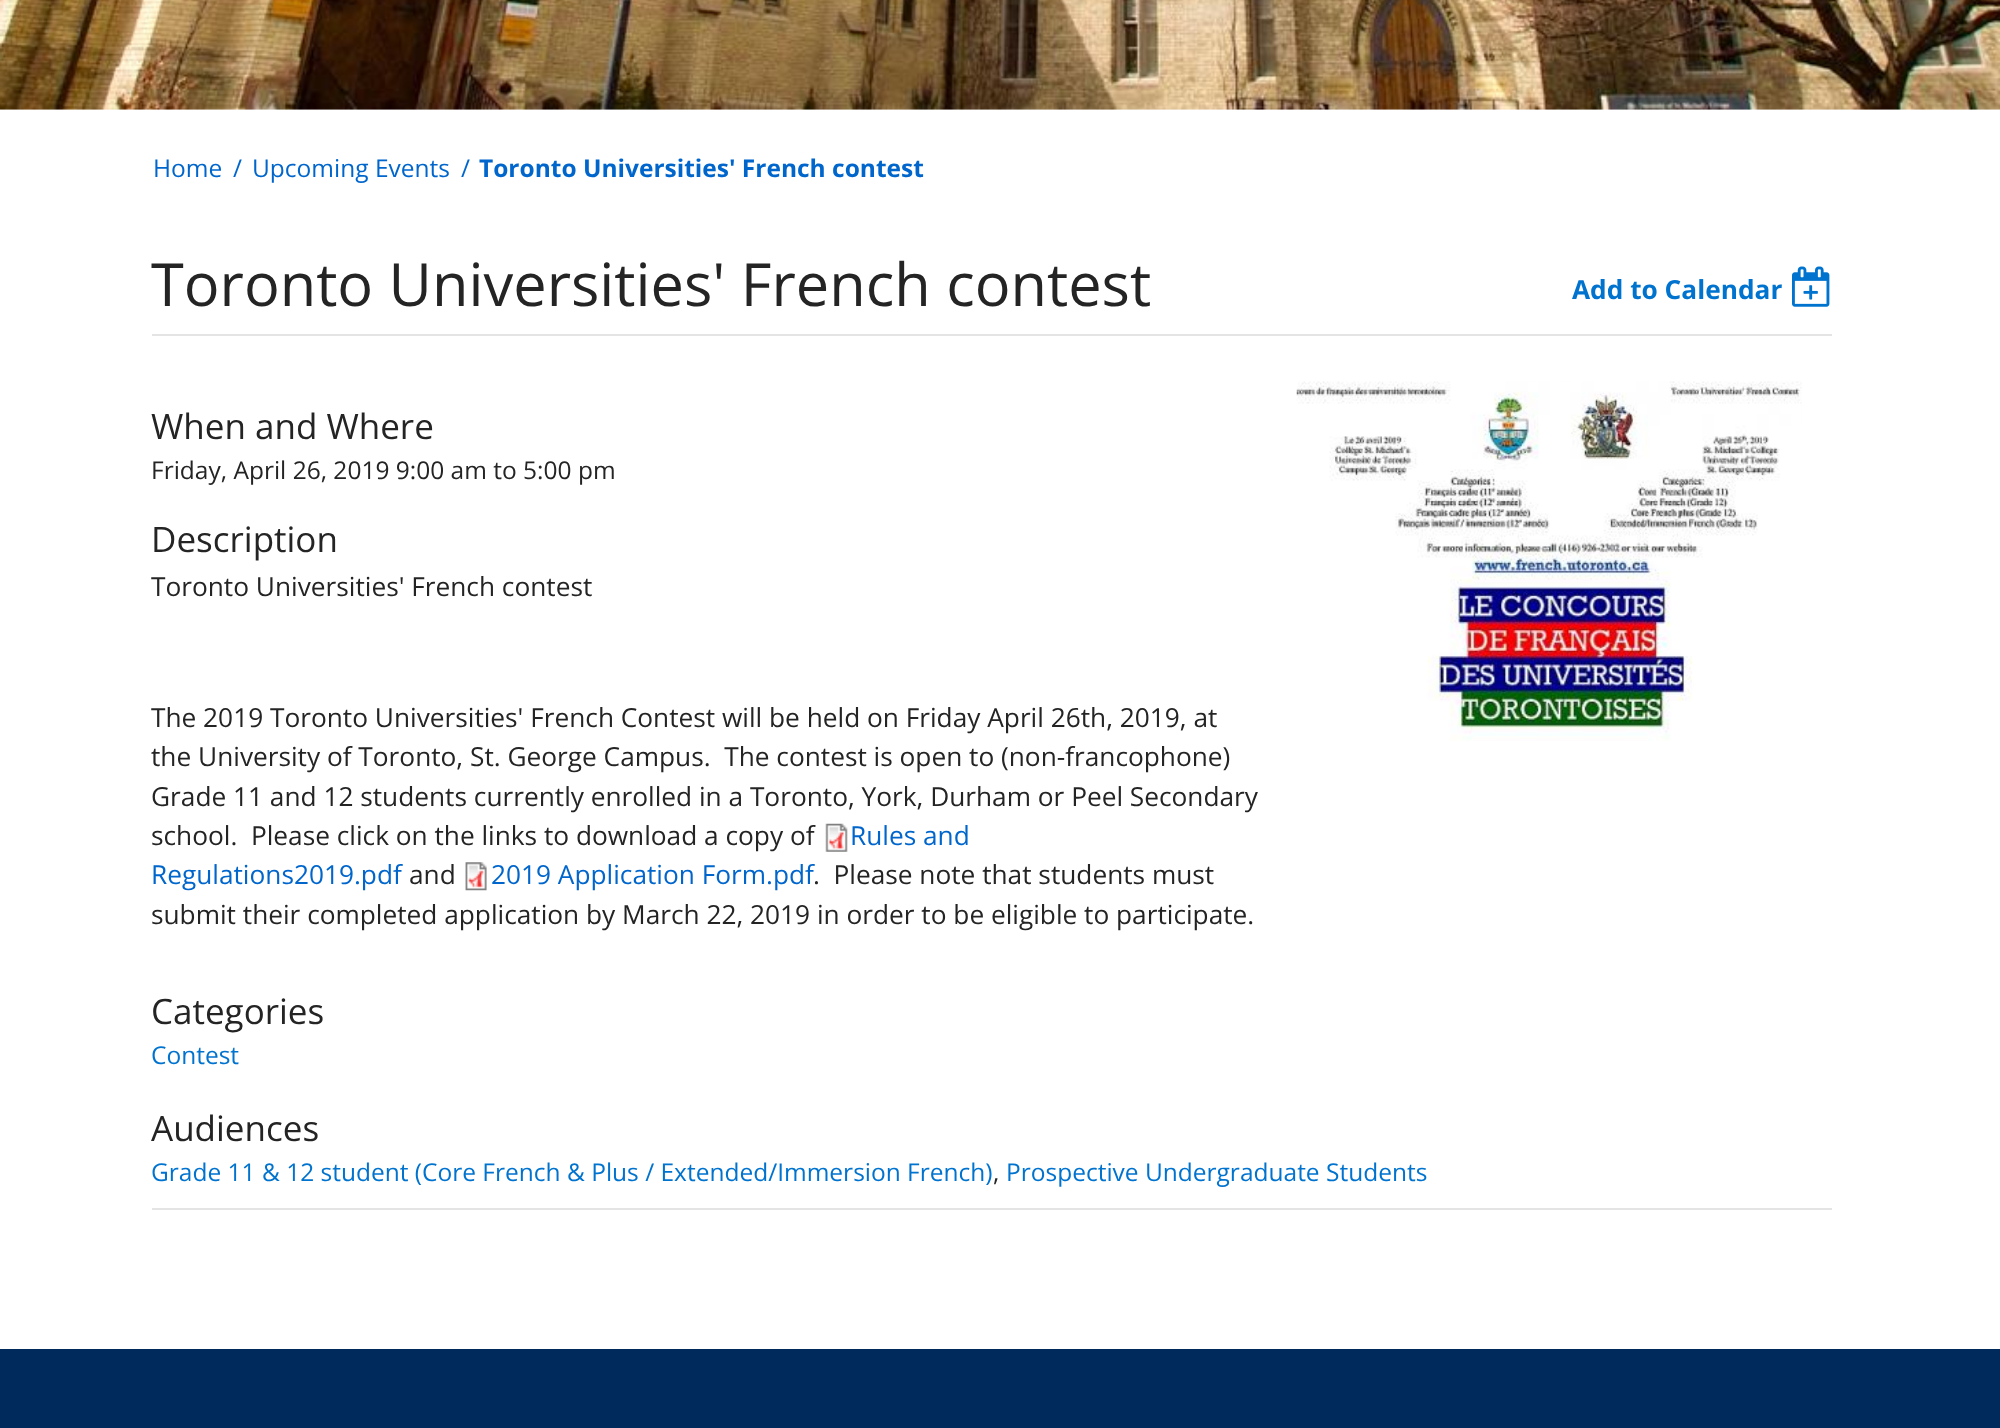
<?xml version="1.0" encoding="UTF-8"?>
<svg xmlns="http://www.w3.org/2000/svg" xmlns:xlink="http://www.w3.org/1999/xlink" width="2000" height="1428">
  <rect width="100%" height="100%" fill="#ffffff" />
  <image x="0" y="0" width="2000" height="110" xlink:href="image1.png" />
  <rect x="152" y="334" width="1680" height="2" fill="#e4e4e4" />
  <image x="1792" y="266" width="38" height="41" xlink:href="image2.png" />
  <image x="825" y="823" width="23" height="29" xlink:href="image3.png" />
  <image x="465" y="862" width="22" height="29" xlink:href="image4.png" />
  <image x="1296" y="381" width="506" height="360" xlink:href="image5.png" />
  <rect x="152" y="1208" width="1680" height="2" fill="#e4e4e4" />
  <rect y="1349" width="2000" height="79" fill="#002a5c" />
  <text x="153" y="177" style="font-family: Open Sans; font-size: 24.5px; fill: #0066cc">Home</text>
  <text x="233" y="177" style="font-family: Open Sans; font-size: 24.5px; fill: #0066cc">/</text>
  <text x="252" y="177" style="font-family: Open Sans; font-size: 24.5px; fill: #0066cc">Upcoming Events</text>
  <text x="461" y="177" style="font-family: Open Sans; font-size: 24.5px; fill: #0066cc">/</text>
  <text x="479" y="177" style="font-family: Open Sans; font-size: 24.5px; font-weight: bold; fill: #0066cc">Toronto Universities' French contest</text>
  <text x="151" y="306" style="font-family: Open Sans; font-size: 59.5px; fill: #242424">Toronto Universities' French contest</text>
  <text x="1572" y="299" style="font-family: Open Sans; font-size: 26.25px; font-weight: bold; fill: #0073cf">Add to Calendar</text>
  <text x="151" y="439" style="font-family: Open Sans; font-size: 35px; fill: #242424">When and Where</text>
  <text x="151" y="479" style="font-family: Open Sans; font-size: 24.5px; fill: #242424">Friday, April 26, 2019 9:00 am to 5:00 pm</text>
  <text x="151" y="552" style="font-family: Open Sans; font-size: 35px; fill: #242424">Description</text>
  <text x="151" y="596" style="font-family: Open Sans; font-size: 26.25px; fill: #242424">Toronto Universities' French contest</text>
  <text x="151" y="727" style="font-family: Open Sans; font-size: 26.25px; fill: #242424">The 2019 Toronto Universities' French Contest will be held on Friday April 26th, 2019, at</text>
  <text x="151" y="766" style="font-family: Open Sans; font-size: 26.25px; fill: #242424" xml:space="preserve">the University of Toronto, St. George Campus.  The contest is open to (non-francophone)</text>
  <text x="151" y="806" style="font-family: Open Sans; font-size: 26.25px; fill: #242424">Grade 11 and 12 students currently enrolled in a Toronto, York, Durham or Peel Secondary</text>
  <text x="151" y="845" style="font-family: Open Sans; font-size: 26.25px; fill: #242424" xml:space="preserve">school.  Please click on the links to download a copy of</text>
  <text x="850" y="845" style="font-family: Open Sans; font-size: 26.25px; fill: #0066cc">Rules and</text>
  <text x="151" y="884" style="font-family: Open Sans; font-size: 26.25px; fill: #0066cc">Regulations2019.pdf</text>
  <text x="409" y="884" style="font-family: Open Sans; font-size: 26.25px; fill: #242424">and</text>
  <text x="491" y="884" style="font-family: Open Sans; font-size: 26.25px; fill: #0066cc">2019 Application Form.pdf</text>
  <text x="813" y="884" style="font-family: Open Sans; font-size: 26.25px; fill: #242424" xml:space="preserve">.  Please note that students must</text>
  <text x="151" y="924" style="font-family: Open Sans; font-size: 26.25px; fill: #242424">submit their completed application by March 22, 2019 in order to be eligible to participate.</text>
  <text x="151" y="1024" style="font-family: Open Sans; font-size: 35px; fill: #242424">Categories</text>
  <text x="151" y="1064" style="font-family: Open Sans; font-size: 24.5px; fill: #0073cf">Contest</text>
  <text x="151" y="1141" style="font-family: Open Sans; font-size: 35px; fill: #242424">Audiences</text>
  <text x="151" y="1181" style="font-family: Open Sans; font-size: 24.5px; fill: #0073cf">Grade 11 &amp; 12 student (Core French &amp; Plus / Extended/Immersion French)</text>
  <text x="993" y="1181" style="font-family: Open Sans; font-size: 24.5px; fill: #242424">,</text>
  <text x="1006" y="1181" style="font-family: Open Sans; font-size: 24.5px; fill: #0073cf">Prospective Undergraduate Students</text>
</svg>
